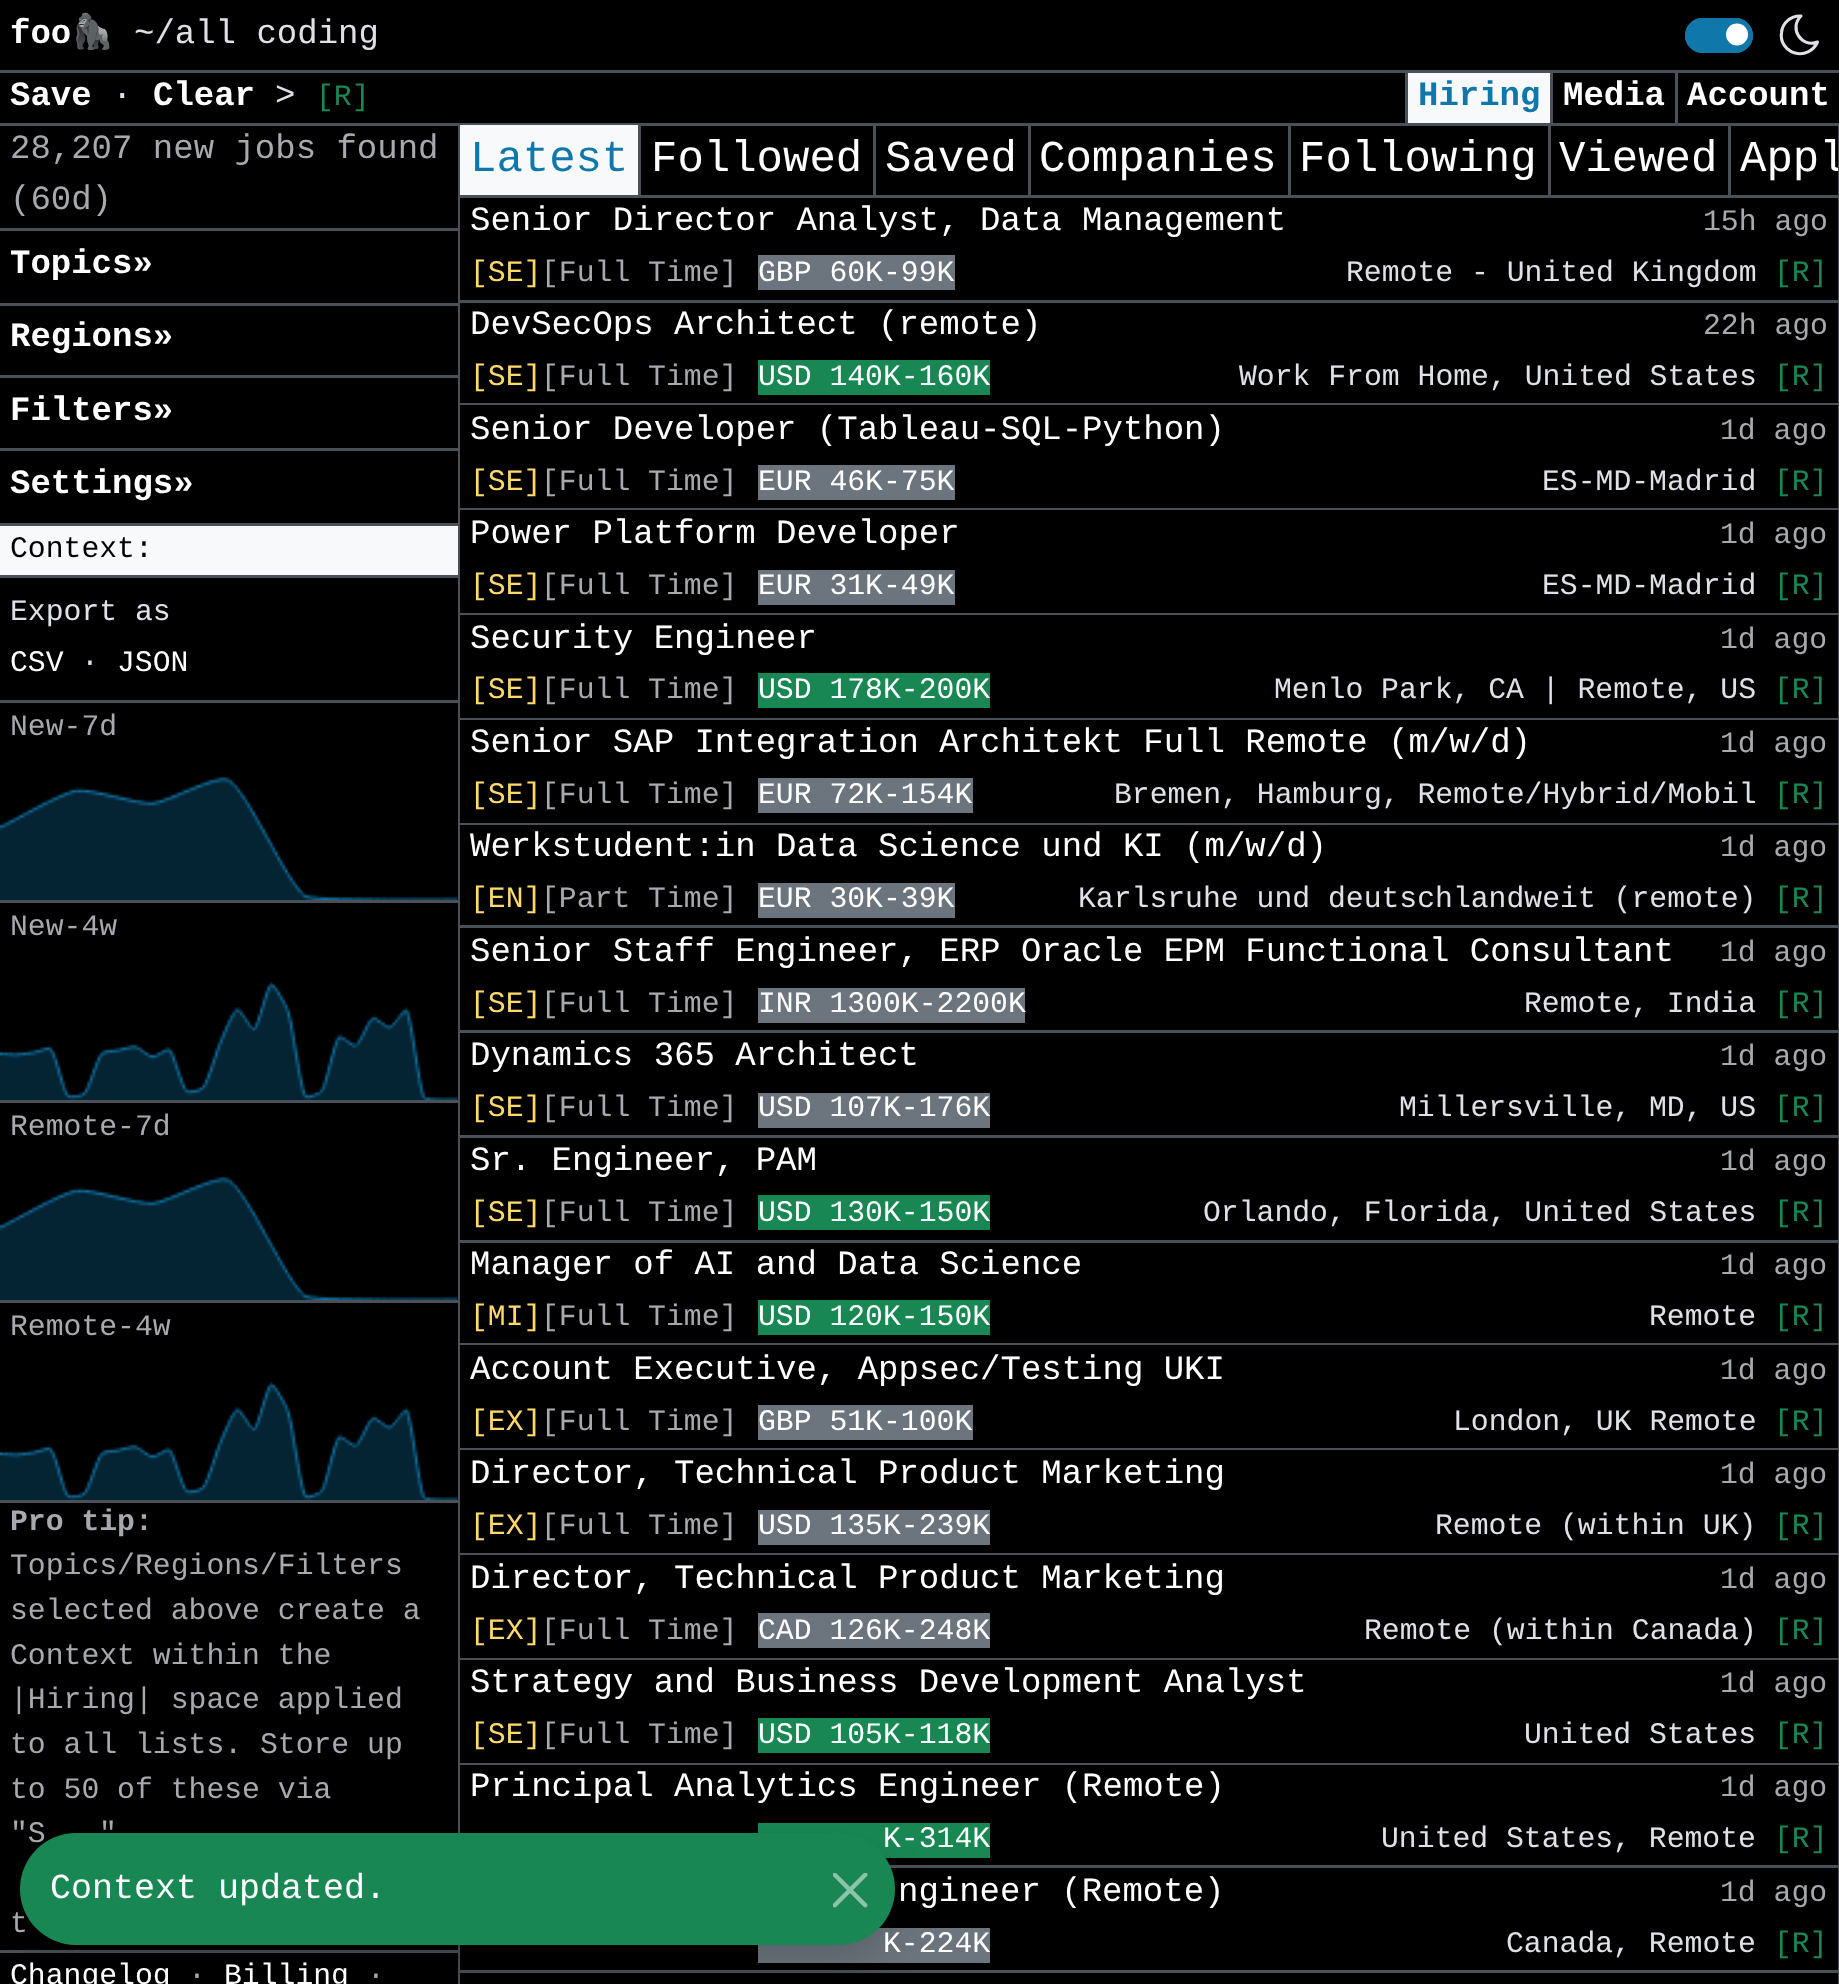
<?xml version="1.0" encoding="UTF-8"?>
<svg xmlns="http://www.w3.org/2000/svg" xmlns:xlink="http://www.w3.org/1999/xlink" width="1839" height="1984">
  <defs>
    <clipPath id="clip1"><rect x="460" y="125" width="1378" height="70" /></clipPath>
  </defs>
  <rect width="100%" height="100%" fill="#000000" />
  <rect y="70" width="1839" height="3" fill="#495057" />
  <rect x="1685" y="18" width="68" height="35" rx="17.5" fill="#1077aa" />
  <circle cx="1737" cy="34.5" r="11" fill="#ffffff" />
  <rect x="1686.5" y="19.5" width="65" height="32" rx="16" fill="none" stroke="#1077aa" stroke-width="3" />
  <path d="M 1800 16 h 1 c -12.5 12 0.5 32.5 16.5 26 c -4 9 -13.5 13.5 -22.5 11 c -9 -2.5 -15 -11 -13.5 -20.5 c 1 -9.5 9 -16.5 18.5 -16.5 z" fill="none" stroke="#dee2e6" stroke-width="3.1" stroke-linecap="round" stroke-linejoin="round" />
  <rect y="123" width="1839" height="3" fill="#495057" />
  <rect x="1408" y="73" width="142" height="50" fill="#f8f9fa" />
  <rect x="1405" y="73" width="3" height="50" fill="#495057" />
  <rect x="1550" y="73" width="3" height="50" fill="#495057" />
  <rect x="1675" y="73" width="3" height="50" fill="#495057" />
  <rect x="458" y="125" width="2" height="1859" fill="#495057" />
  <rect y="228" width="458" height="3" fill="#495057" />
  <rect y="303" width="458" height="3" fill="#495057" />
  <rect y="375" width="458" height="3" fill="#495057" />
  <rect y="448" width="458" height="3" fill="#495057" />
  <rect y="523" width="458" height="3" fill="#495057" />
  <rect y="526" width="458" height="49" fill="#f8f9fa" />
  <rect y="575" width="458" height="3" fill="#495057" />
  <rect y="700" width="458" height="3" fill="#495057" />
  <rect y="900" width="458" height="3" fill="#495057" />
  <image x="0" y="776" width="458" height="124" xlink:href="image1.png" />
  <rect y="1100" width="458" height="3" fill="#495057" />
  <image x="0" y="981" width="458" height="119" xlink:href="image2.png" />
  <rect y="1300" width="458" height="3" fill="#495057" />
  <image x="0" y="1176" width="458" height="124" xlink:href="image3.png" />
  <rect y="1500" width="458" height="3" fill="#495057" />
  <image x="0" y="1382" width="458" height="118" xlink:href="image4.png" />
  <rect y="1950" width="458" height="3" fill="#495057" />
  <rect x="1838" y="125" width="1" height="1859" fill="#495057" />
  <rect x="460" y="195" width="1378" height="3" fill="#495057" />
  <rect x="460" y="125" width="178" height="70" fill="#f8f9fa" />
  <rect x="638" y="125" width="3" height="70" fill="#495057" />
  <rect x="873" y="125" width="3" height="70" fill="#495057" />
  <rect x="1028" y="125" width="3" height="70" fill="#495057" />
  <rect x="1288" y="125" width="3" height="70" fill="#495057" />
  <rect x="1548" y="125" width="3" height="70" fill="#495057" />
  <rect x="1728" y="125" width="3" height="70" fill="#495057" />
  <rect x="460" y="300" width="1378" height="3" fill="#495057" />
  <rect x="758" y="255" width="197" height="35" fill="#6c757d" />
  <rect x="460" y="403" width="1378" height="2" fill="#495057" />
  <rect x="758" y="360" width="232" height="35" fill="#198754" />
  <rect x="460" y="508" width="1378" height="2" fill="#495057" />
  <rect x="758" y="465" width="197" height="35" fill="#6c757d" />
  <rect x="460" y="613" width="1378" height="2" fill="#495057" />
  <rect x="758" y="570" width="197" height="35" fill="#6c757d" />
  <rect x="460" y="718" width="1378" height="2" fill="#495057" />
  <rect x="758" y="673" width="232" height="35" fill="#198754" />
  <rect x="460" y="823" width="1378" height="2" fill="#495057" />
  <rect x="758" y="778" width="215" height="35" fill="#6c757d" />
  <rect x="460" y="925" width="1378" height="3" fill="#495057" />
  <rect x="758" y="883" width="197" height="35" fill="#6c757d" />
  <rect x="460" y="1030" width="1378" height="3" fill="#495057" />
  <rect x="758" y="988" width="267" height="35" fill="#6c757d" />
  <rect x="460" y="1135" width="1378" height="3" fill="#495057" />
  <rect x="758" y="1093" width="232" height="35" fill="#6c757d" />
  <rect x="460" y="1240" width="1378" height="3" fill="#495057" />
  <rect x="758" y="1195" width="232" height="35" fill="#198754" />
  <rect x="460" y="1343" width="1378" height="2" fill="#495057" />
  <rect x="758" y="1300" width="232" height="35" fill="#198754" />
  <rect x="460" y="1448" width="1378" height="2" fill="#495057" />
  <rect x="758" y="1405" width="215" height="35" fill="#6c757d" />
  <rect x="460" y="1553" width="1378" height="2" fill="#495057" />
  <rect x="758" y="1510" width="232" height="35" fill="#6c757d" />
  <rect x="460" y="1658" width="1378" height="2" fill="#495057" />
  <rect x="758" y="1613" width="232" height="35" fill="#6c757d" />
  <rect x="460" y="1763" width="1378" height="2" fill="#495057" />
  <rect x="758" y="1718" width="232" height="35" fill="#198754" />
  <rect x="889" y="1865" width="949" height="3" fill="#495057" />
  <rect x="758" y="1823" width="232" height="35" fill="#198754" />
  <rect x="460" y="1970" width="1378" height="3" fill="#495057" />
  <rect x="758" y="1928" width="232" height="35" fill="#6c757d" />
  <rect x="20" y="1853" width="875" height="112" rx="56" fill="#000000" fill-opacity="0.15" filter="blur(20px)" />
  <text x="10" y="43" style="font-family: Liberation Mono; font-size: 34px; font-weight: bold; fill: #ffffff">foo</text>
  <text x="71" y="43" style="font-family: Noto Color Emoji; font-size: 34px; font-weight: bold; fill: #ffffff">🦍</text>
  <text x="134" y="43" style="font-family: Liberation Mono; font-size: 34px; fill: #dee2e6">~/all coding</text>
  <text x="10" y="105" style="font-family: Liberation Mono; font-size: 34px; font-weight: bold; fill: #ffffff">Save</text>
  <text x="112" y="105" style="font-family: Liberation Mono; font-size: 34px; fill: #dee2e6">·</text>
  <text x="153" y="105" style="font-family: Liberation Mono; font-size: 34px; font-weight: bold; fill: #ffffff">Clear</text>
  <text x="275" y="105" style="font-family: Liberation Mono; font-size: 34px; fill: #dee2e6">&gt;</text>
  <text x="316" y="105" style="font-family: Liberation Mono; font-size: 29.75px; fill: #198754">[R]</text>
  <text x="1418" y="105" style="font-family: Liberation Mono; font-size: 34px; font-weight: bold; fill: #1077aa">Hiring</text>
  <text x="1563" y="105" style="font-family: Liberation Mono; font-size: 34px; font-weight: bold; fill: #ffffff">Media</text>
  <text x="1687" y="105" style="font-family: Liberation Mono; font-size: 34px; font-weight: bold; fill: #ffffff">Account</text>
  <text x="10" y="158" style="font-family: Liberation Mono; font-size: 34px; fill: #a7aaad">28,207 new jobs found</text>
  <text x="10" y="209" style="font-family: Liberation Mono; font-size: 34px; fill: #a7aaad">(60d)</text>
  <text x="10" y="273" style="font-family: Liberation Mono; font-size: 34px; font-weight: bold; fill: #ffffff">Topics»</text>
  <text x="10" y="346" style="font-family: Liberation Mono; font-size: 34px; font-weight: bold; fill: #ffffff">Regions»</text>
  <text x="10" y="420" style="font-family: Liberation Mono; font-size: 34px; font-weight: bold; fill: #ffffff">Filters»</text>
  <text x="10" y="493" style="font-family: Liberation Mono; font-size: 34px; font-weight: bold; fill: #ffffff">Settings»</text>
  <text x="10" y="557" style="font-family: Liberation Mono; font-size: 29.75px; fill: #000000">Context:</text>
  <text x="10" y="620" style="font-family: Liberation Mono; font-size: 29.75px; fill: #dee2e6">Export as</text>
  <text x="10" y="671" style="font-family: Liberation Mono; font-size: 29.75px; fill: #ffffff">CSV</text>
  <text x="81" y="671" style="font-family: Liberation Mono; font-size: 29.75px; fill: #dee2e6">·</text>
  <text x="117" y="671" style="font-family: Liberation Mono; font-size: 29.75px; fill: #ffffff">JSON</text>
  <text x="10" y="735" style="font-family: Liberation Mono; font-size: 29.75px; fill: #a7aaad">New-7d</text>
  <text x="10" y="935" style="font-family: Liberation Mono; font-size: 29.75px; fill: #a7aaad">New-4w</text>
  <text x="10" y="1135" style="font-family: Liberation Mono; font-size: 29.75px; fill: #a7aaad">Remote-7d</text>
  <text x="10" y="1335" style="font-family: Liberation Mono; font-size: 29.75px; fill: #a7aaad">Remote-4w</text>
  <text x="10" y="1530" style="font-family: Liberation Mono; font-size: 29.75px; font-weight: bold; fill: #a7aaad">Pro tip:</text>
  <text x="10" y="1574" style="font-family: Liberation Mono; font-size: 29.75px; fill: #a7aaad">Topics/Regions/Filters</text>
  <text x="10" y="1619" style="font-family: Liberation Mono; font-size: 29.75px; fill: #a7aaad">selected above create a</text>
  <text x="10" y="1664" style="font-family: Liberation Mono; font-size: 29.75px; fill: #a7aaad">Context within the</text>
  <text x="10" y="1708" style="font-family: Liberation Mono; font-size: 29.75px; fill: #a7aaad">|Hiring| space applied</text>
  <text x="10" y="1753" style="font-family: Liberation Mono; font-size: 29.75px; fill: #a7aaad">to all lists. Store up</text>
  <text x="10" y="1798" style="font-family: Liberation Mono; font-size: 29.75px; fill: #a7aaad">to 50 of these via</text>
  <text x="10" y="1842" style="font-family: Liberation Mono; font-size: 29.75px; fill: #a7aaad">"S</text>
  <text x="99" y="1842" style="font-family: Liberation Mono; font-size: 29.75px; fill: #a7aaad">"</text>
  <text x="10" y="1932" style="font-family: Liberation Mono; font-size: 29.75px; fill: #a7aaad">t</text>
  <text x="10" y="1984" style="font-family: Liberation Mono; font-size: 29.75px; fill: #ffffff">Changelog</text>
  <text x="188" y="1984" style="font-family: Liberation Mono; font-size: 29.75px; fill: #a7aaad">·</text>
  <text x="224" y="1984" style="font-family: Liberation Mono; font-size: 29.75px; fill: #ffffff">Billing</text>
  <text x="367" y="1984" style="font-family: Liberation Mono; font-size: 29.75px; fill: #a7aaad">·</text>
  <text x="470" y="171" style="font-family: Liberation Mono; font-size: 44px; fill: #1077aa">Latest</text>
  <text x="651" y="171" style="font-family: Liberation Mono; font-size: 44px; fill: #ffffff">Followed</text>
  <text x="885" y="171" style="font-family: Liberation Mono; font-size: 44px; fill: #ffffff">Saved</text>
  <text x="1039" y="171" style="font-family: Liberation Mono; font-size: 44px; fill: #ffffff">Companies</text>
  <text x="1299" y="171" style="font-family: Liberation Mono; font-size: 44px; fill: #ffffff">Following</text>
  <text x="1559" y="171" style="font-family: Liberation Mono; font-size: 44px; fill: #ffffff">Viewed</text>
  <g clip-path="url(#clip1)">
    <text x="1740" y="171" style="font-family: Liberation Mono; font-size: 44px; fill: #ffffff">Appl</text>
  </g>
  <text x="470" y="230" style="font-family: Liberation Mono; font-size: 34px; fill: #ffffff">Senior Director Analyst, Data Management</text>
  <text x="1703" y="230" style="font-family: Liberation Mono; font-size: 29.75px; fill: #a7aaad">15h ago</text>
  <text x="470" y="281" style="font-family: Liberation Mono; font-size: 29.75px; fill: #ffda6a">[SE]</text>
  <text x="541" y="281" style="font-family: Liberation Mono; font-size: 29.75px; fill: #a7aaad">[Full Time]</text>
  <text x="758" y="281" style="font-family: Liberation Mono; font-size: 29.75px; fill: #ffffff">GBP 60K-99K</text>
  <text x="1346" y="281" style="font-family: Liberation Mono; font-size: 29.75px; fill: #dee2e6">Remote - United Kingdom</text>
  <text x="1774" y="281" style="font-family: Liberation Mono; font-size: 29.75px; fill: #198754">[R]</text>
  <text x="470" y="334" style="font-family: Liberation Mono; font-size: 34px; fill: #ffffff">DevSecOps Architect (remote)</text>
  <text x="1703" y="334" style="font-family: Liberation Mono; font-size: 29.75px; fill: #a7aaad">22h ago</text>
  <text x="470" y="385" style="font-family: Liberation Mono; font-size: 29.75px; fill: #ffda6a">[SE]</text>
  <text x="541" y="385" style="font-family: Liberation Mono; font-size: 29.75px; fill: #a7aaad">[Full Time]</text>
  <text x="758" y="385" style="font-family: Liberation Mono; font-size: 29.75px; fill: #ffffff">USD 140K-160K</text>
  <text x="1239" y="385" style="font-family: Liberation Mono; font-size: 29.75px; fill: #dee2e6">Work From Home, United States</text>
  <text x="1774" y="385" style="font-family: Liberation Mono; font-size: 29.75px; fill: #198754">[R]</text>
  <text x="470" y="439" style="font-family: Liberation Mono; font-size: 34px; fill: #ffffff">Senior Developer (Tableau-SQL-Python)</text>
  <text x="1720" y="439" style="font-family: Liberation Mono; font-size: 29.75px; fill: #a7aaad">1d ago</text>
  <text x="470" y="490" style="font-family: Liberation Mono; font-size: 29.75px; fill: #ffda6a">[SE]</text>
  <text x="541" y="490" style="font-family: Liberation Mono; font-size: 29.75px; fill: #a7aaad">[Full Time]</text>
  <text x="758" y="490" style="font-family: Liberation Mono; font-size: 29.75px; fill: #ffffff">EUR 46K-75K</text>
  <text x="1542" y="490" style="font-family: Liberation Mono; font-size: 29.75px; fill: #dee2e6">ES-MD-Madrid</text>
  <text x="1774" y="490" style="font-family: Liberation Mono; font-size: 29.75px; fill: #198754">[R]</text>
  <text x="470" y="543" style="font-family: Liberation Mono; font-size: 34px; fill: #ffffff">Power Platform Developer</text>
  <text x="1720" y="543" style="font-family: Liberation Mono; font-size: 29.75px; fill: #a7aaad">1d ago</text>
  <text x="470" y="594" style="font-family: Liberation Mono; font-size: 29.75px; fill: #ffda6a">[SE]</text>
  <text x="541" y="594" style="font-family: Liberation Mono; font-size: 29.75px; fill: #a7aaad">[Full Time]</text>
  <text x="758" y="594" style="font-family: Liberation Mono; font-size: 29.75px; fill: #ffffff">EUR 31K-49K</text>
  <text x="1542" y="594" style="font-family: Liberation Mono; font-size: 29.75px; fill: #dee2e6">ES-MD-Madrid</text>
  <text x="1774" y="594" style="font-family: Liberation Mono; font-size: 29.75px; fill: #198754">[R]</text>
  <text x="470" y="648" style="font-family: Liberation Mono; font-size: 34px; fill: #ffffff">Security Engineer</text>
  <text x="1720" y="648" style="font-family: Liberation Mono; font-size: 29.75px; fill: #a7aaad">1d ago</text>
  <text x="470" y="698" style="font-family: Liberation Mono; font-size: 29.75px; fill: #ffda6a">[SE]</text>
  <text x="541" y="698" style="font-family: Liberation Mono; font-size: 29.75px; fill: #a7aaad">[Full Time]</text>
  <text x="758" y="698" style="font-family: Liberation Mono; font-size: 29.75px; fill: #ffffff">USD 178K-200K</text>
  <text x="1274" y="698" style="font-family: Liberation Mono; font-size: 29.75px; fill: #dee2e6">Menlo Park, CA | Remote, US</text>
  <text x="1774" y="698" style="font-family: Liberation Mono; font-size: 29.75px; fill: #198754">[R]</text>
  <text x="470" y="752" style="font-family: Liberation Mono; font-size: 34px; fill: #ffffff">Senior SAP Integration Architekt Full Remote (m/w/d)</text>
  <text x="1720" y="752" style="font-family: Liberation Mono; font-size: 29.75px; fill: #a7aaad">1d ago</text>
  <text x="470" y="803" style="font-family: Liberation Mono; font-size: 29.75px; fill: #ffda6a">[SE]</text>
  <text x="541" y="803" style="font-family: Liberation Mono; font-size: 29.75px; fill: #a7aaad">[Full Time]</text>
  <text x="758" y="803" style="font-family: Liberation Mono; font-size: 29.75px; fill: #ffffff">EUR 72K-154K</text>
  <text x="1114" y="803" style="font-family: Liberation Mono; font-size: 29.75px; fill: #dee2e6">Bremen, Hamburg, Remote/Hybrid/Mobil</text>
  <text x="1774" y="803" style="font-family: Liberation Mono; font-size: 29.75px; fill: #198754">[R]</text>
  <text x="470" y="856" style="font-family: Liberation Mono; font-size: 34px; fill: #ffffff">Werkstudent:in Data Science und KI (m/w/d)</text>
  <text x="1720" y="856" style="font-family: Liberation Mono; font-size: 29.75px; fill: #a7aaad">1d ago</text>
  <text x="470" y="907" style="font-family: Liberation Mono; font-size: 29.75px; fill: #ffda6a">[EN]</text>
  <text x="541" y="907" style="font-family: Liberation Mono; font-size: 29.75px; fill: #a7aaad">[Part Time]</text>
  <text x="758" y="907" style="font-family: Liberation Mono; font-size: 29.75px; fill: #ffffff">EUR 30K-39K</text>
  <text x="1078" y="907" style="font-family: Liberation Mono; font-size: 29.75px; fill: #dee2e6">Karlsruhe und deutschlandweit (remote)</text>
  <text x="1774" y="907" style="font-family: Liberation Mono; font-size: 29.75px; fill: #198754">[R]</text>
  <text x="470" y="961" style="font-family: Liberation Mono; font-size: 34px; fill: #ffffff">Senior Staff Engineer, ERP Oracle EPM Functional Consultant</text>
  <text x="1720" y="961" style="font-family: Liberation Mono; font-size: 29.75px; fill: #a7aaad">1d ago</text>
  <text x="470" y="1012" style="font-family: Liberation Mono; font-size: 29.75px; fill: #ffda6a">[SE]</text>
  <text x="541" y="1012" style="font-family: Liberation Mono; font-size: 29.75px; fill: #a7aaad">[Full Time]</text>
  <text x="758" y="1012" style="font-family: Liberation Mono; font-size: 29.75px; fill: #ffffff">INR 1300K-2200K</text>
  <text x="1524" y="1012" style="font-family: Liberation Mono; font-size: 29.75px; fill: #dee2e6">Remote, India</text>
  <text x="1774" y="1012" style="font-family: Liberation Mono; font-size: 29.75px; fill: #198754">[R]</text>
  <text x="470" y="1065" style="font-family: Liberation Mono; font-size: 34px; fill: #ffffff">Dynamics 365 Architect</text>
  <text x="1720" y="1065" style="font-family: Liberation Mono; font-size: 29.75px; fill: #a7aaad">1d ago</text>
  <text x="470" y="1116" style="font-family: Liberation Mono; font-size: 29.75px; fill: #ffda6a">[SE]</text>
  <text x="541" y="1116" style="font-family: Liberation Mono; font-size: 29.75px; fill: #a7aaad">[Full Time]</text>
  <text x="758" y="1116" style="font-family: Liberation Mono; font-size: 29.75px; fill: #ffffff">USD 107K-176K</text>
  <text x="1399" y="1116" style="font-family: Liberation Mono; font-size: 29.75px; fill: #dee2e6">Millersville, MD, US</text>
  <text x="1774" y="1116" style="font-family: Liberation Mono; font-size: 29.75px; fill: #198754">[R]</text>
  <text x="470" y="1170" style="font-family: Liberation Mono; font-size: 34px; fill: #ffffff">Sr. Engineer, PAM</text>
  <text x="1720" y="1170" style="font-family: Liberation Mono; font-size: 29.75px; fill: #a7aaad">1d ago</text>
  <text x="470" y="1221" style="font-family: Liberation Mono; font-size: 29.75px; fill: #ffda6a">[SE]</text>
  <text x="541" y="1221" style="font-family: Liberation Mono; font-size: 29.75px; fill: #a7aaad">[Full Time]</text>
  <text x="758" y="1221" style="font-family: Liberation Mono; font-size: 29.75px; fill: #ffffff">USD 130K-150K</text>
  <text x="1203" y="1221" style="font-family: Liberation Mono; font-size: 29.75px; fill: #dee2e6">Orlando, Florida, United States</text>
  <text x="1774" y="1221" style="font-family: Liberation Mono; font-size: 29.75px; fill: #198754">[R]</text>
  <text x="470" y="1274" style="font-family: Liberation Mono; font-size: 34px; fill: #ffffff">Manager of AI and Data Science</text>
  <text x="1720" y="1274" style="font-family: Liberation Mono; font-size: 29.75px; fill: #a7aaad">1d ago</text>
  <text x="470" y="1325" style="font-family: Liberation Mono; font-size: 29.75px; fill: #ffda6a">[MI]</text>
  <text x="541" y="1325" style="font-family: Liberation Mono; font-size: 29.75px; fill: #a7aaad">[Full Time]</text>
  <text x="758" y="1325" style="font-family: Liberation Mono; font-size: 29.75px; fill: #ffffff">USD 120K-150K</text>
  <text x="1649" y="1325" style="font-family: Liberation Mono; font-size: 29.75px; fill: #dee2e6">Remote</text>
  <text x="1774" y="1325" style="font-family: Liberation Mono; font-size: 29.75px; fill: #198754">[R]</text>
  <text x="470" y="1379" style="font-family: Liberation Mono; font-size: 34px; fill: #ffffff">Account Executive, Appsec/Testing UKI</text>
  <text x="1720" y="1379" style="font-family: Liberation Mono; font-size: 29.75px; fill: #a7aaad">1d ago</text>
  <text x="470" y="1430" style="font-family: Liberation Mono; font-size: 29.75px; fill: #ffda6a">[EX]</text>
  <text x="541" y="1430" style="font-family: Liberation Mono; font-size: 29.75px; fill: #a7aaad">[Full Time]</text>
  <text x="758" y="1430" style="font-family: Liberation Mono; font-size: 29.75px; fill: #ffffff">GBP 51K-100K</text>
  <text x="1453" y="1430" style="font-family: Liberation Mono; font-size: 29.75px; fill: #dee2e6">London, UK Remote</text>
  <text x="1774" y="1430" style="font-family: Liberation Mono; font-size: 29.75px; fill: #198754">[R]</text>
  <text x="470" y="1483" style="font-family: Liberation Mono; font-size: 34px; fill: #ffffff">Director, Technical Product Marketing</text>
  <text x="1720" y="1483" style="font-family: Liberation Mono; font-size: 29.75px; fill: #a7aaad">1d ago</text>
  <text x="470" y="1534" style="font-family: Liberation Mono; font-size: 29.75px; fill: #ffda6a">[EX]</text>
  <text x="541" y="1534" style="font-family: Liberation Mono; font-size: 29.75px; fill: #a7aaad">[Full Time]</text>
  <text x="758" y="1534" style="font-family: Liberation Mono; font-size: 29.75px; fill: #ffffff">USD 135K-239K</text>
  <text x="1435" y="1534" style="font-family: Liberation Mono; font-size: 29.75px; fill: #dee2e6">Remote (within UK)</text>
  <text x="1774" y="1534" style="font-family: Liberation Mono; font-size: 29.75px; fill: #198754">[R]</text>
  <text x="470" y="1588" style="font-family: Liberation Mono; font-size: 34px; fill: #ffffff">Director, Technical Product Marketing</text>
  <text x="1720" y="1588" style="font-family: Liberation Mono; font-size: 29.75px; fill: #a7aaad">1d ago</text>
  <text x="470" y="1639" style="font-family: Liberation Mono; font-size: 29.75px; fill: #ffda6a">[EX]</text>
  <text x="541" y="1639" style="font-family: Liberation Mono; font-size: 29.75px; fill: #a7aaad">[Full Time]</text>
  <text x="758" y="1639" style="font-family: Liberation Mono; font-size: 29.75px; fill: #ffffff">CAD 126K-248K</text>
  <text x="1364" y="1639" style="font-family: Liberation Mono; font-size: 29.75px; fill: #dee2e6">Remote (within Canada)</text>
  <text x="1774" y="1639" style="font-family: Liberation Mono; font-size: 29.75px; fill: #198754">[R]</text>
  <text x="470" y="1692" style="font-family: Liberation Mono; font-size: 34px; fill: #ffffff">Strategy and Business Development Analyst</text>
  <text x="1720" y="1692" style="font-family: Liberation Mono; font-size: 29.75px; fill: #a7aaad">1d ago</text>
  <text x="470" y="1743" style="font-family: Liberation Mono; font-size: 29.75px; fill: #ffda6a">[SE]</text>
  <text x="541" y="1743" style="font-family: Liberation Mono; font-size: 29.75px; fill: #a7aaad">[Full Time]</text>
  <text x="758" y="1743" style="font-family: Liberation Mono; font-size: 29.75px; fill: #ffffff">USD 105K-118K</text>
  <text x="1524" y="1743" style="font-family: Liberation Mono; font-size: 29.75px; fill: #dee2e6">United States</text>
  <text x="1774" y="1743" style="font-family: Liberation Mono; font-size: 29.75px; fill: #198754">[R]</text>
  <text x="470" y="1796" style="font-family: Liberation Mono; font-size: 34px; fill: #ffffff">Principal Analytics Engineer (Remote)</text>
  <text x="1720" y="1796" style="font-family: Liberation Mono; font-size: 29.75px; fill: #a7aaad">1d ago</text>
  <text x="883" y="1847" style="font-family: Liberation Mono; font-size: 29.75px; fill: #ffffff">K-314K</text>
  <text x="1381" y="1847" style="font-family: Liberation Mono; font-size: 29.75px; fill: #dee2e6">United States, Remote</text>
  <text x="1774" y="1847" style="font-family: Liberation Mono; font-size: 29.75px; fill: #198754">[R]</text>
  <text x="898" y="1901" style="font-family: Liberation Mono; font-size: 34px; fill: #ffffff">ngineer (Remote)</text>
  <text x="1720" y="1901" style="font-family: Liberation Mono; font-size: 29.75px; fill: #a7aaad">1d ago</text>
  <text x="883" y="1952" style="font-family: Liberation Mono; font-size: 29.75px; fill: #ffffff">K-224K</text>
  <text x="1506" y="1952" style="font-family: Liberation Mono; font-size: 29.75px; fill: #dee2e6">Canada, Remote</text>
  <text x="1774" y="1952" style="font-family: Liberation Mono; font-size: 29.75px; fill: #198754">[R]</text>
  <rect x="20" y="1833" width="875" height="112" rx="56" fill="#198754" />
  <text x="50" y="1898" style="font-family: Liberation Mono; font-size: 35px; fill: #ffffff">Context updated.</text>
  <image x="833" y="1873" width="35" height="35" xlink:href="image5.png" />
</svg>
